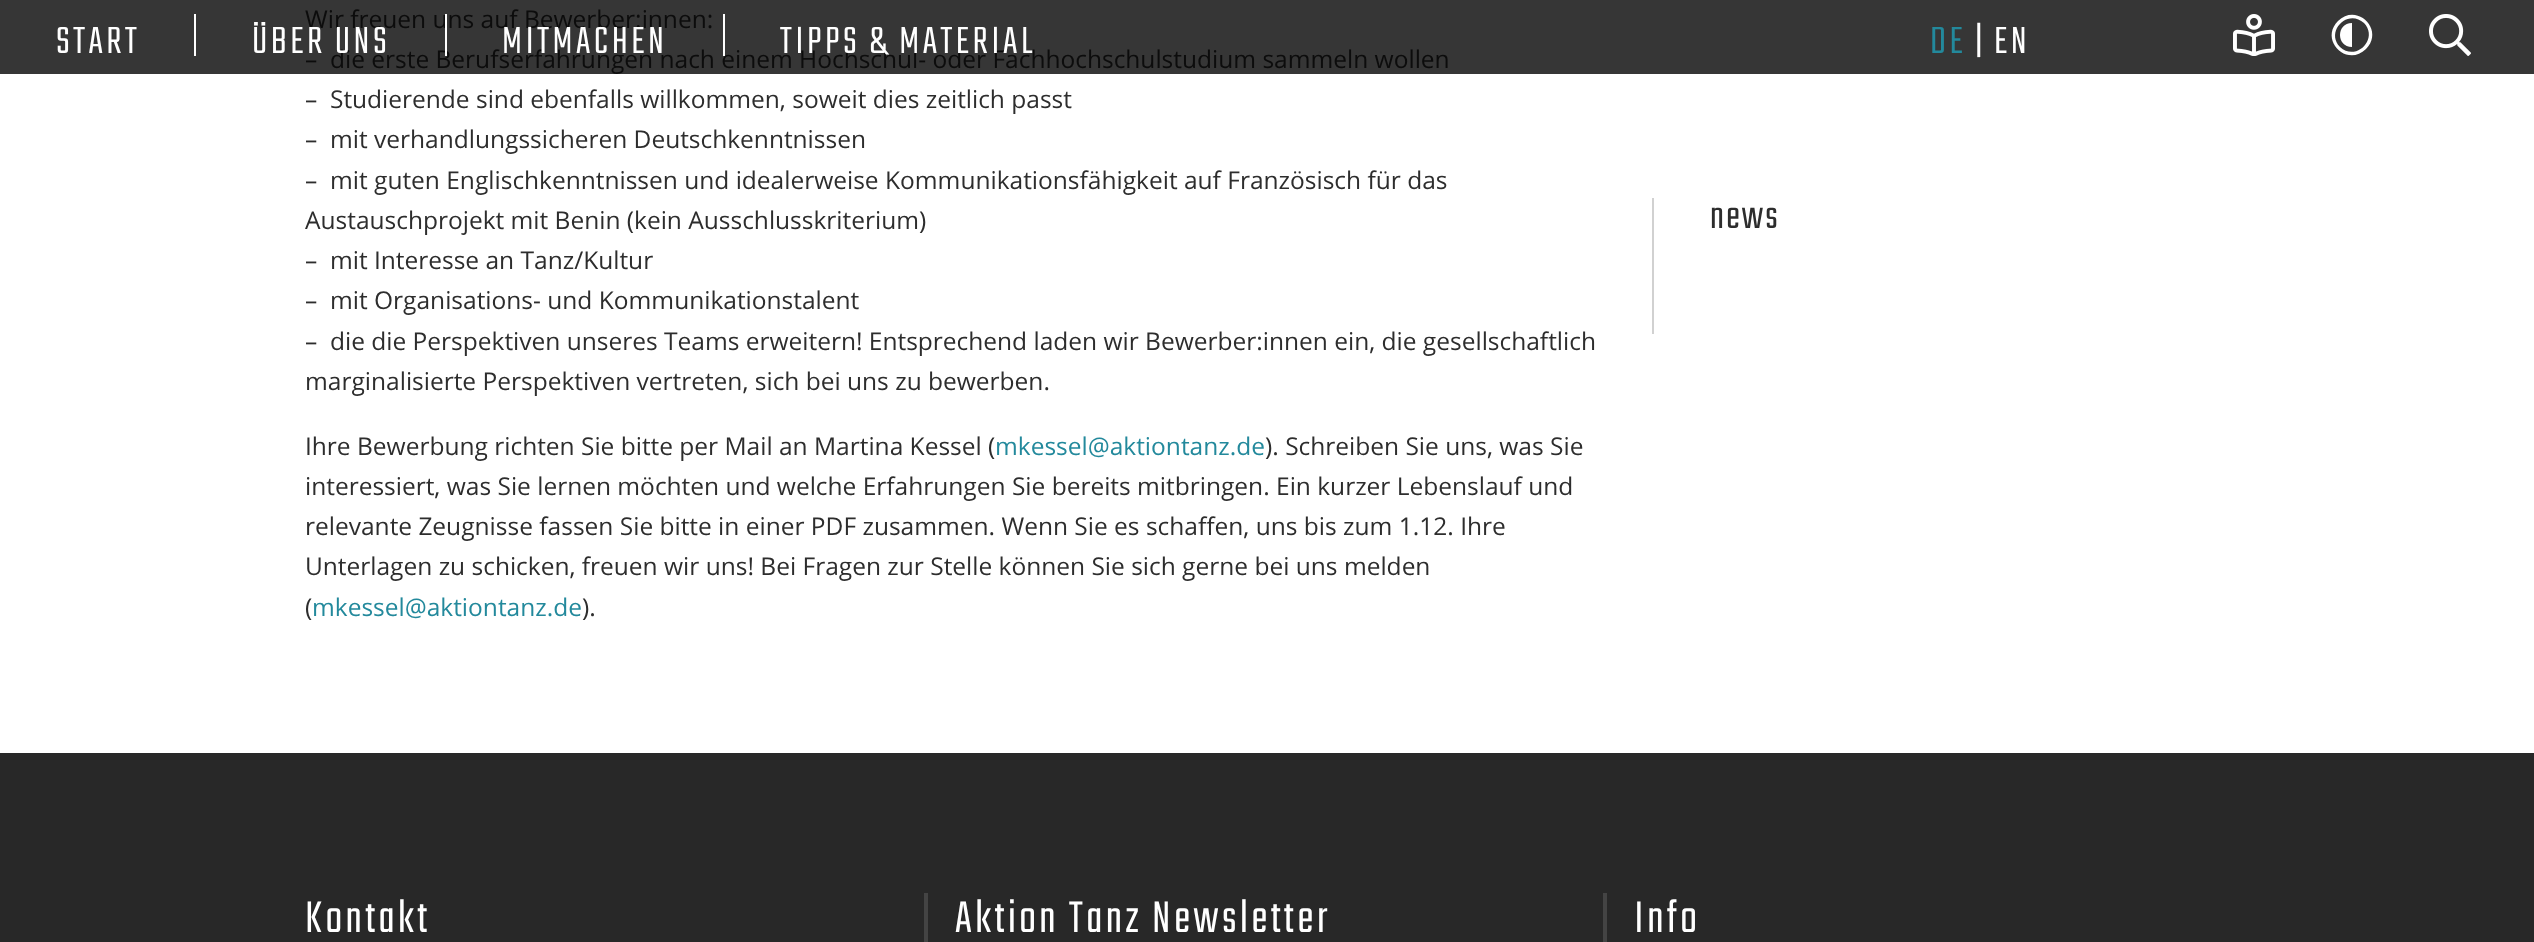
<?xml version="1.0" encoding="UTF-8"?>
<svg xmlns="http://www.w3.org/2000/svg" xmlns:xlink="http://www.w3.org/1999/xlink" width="2534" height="942">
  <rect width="100%" height="100%" fill="#ffffff" />
  <rect width="2534" height="74" fill="#363636" />
  <rect x="1652" y="198" width="2" height="136" fill="#d1d1d1" />
  <rect x="194" y="14" width="2" height="42" fill="#ffffff" />
  <image x="2233" y="14" width="42" height="42" xlink:href="image1.png" />
  <path d="M 2364 23 c -16 -15 -39 8 -24 24 c 16 15 39 -8 24 -24 z m -26 -2 c 19 -19 47 9 28 28 c -19 19 -47 -9 -28 -28 z m 14 2 v 24 c -16 0 -16 -24 0 -24 z" fill="#ffffff" />
  <image x="2429" y="14" width="42" height="42" xlink:href="image2.png" />
  <rect y="753" width="2534" height="189" fill="#282828" />
  <rect x="924" y="893" width="4" height="49" fill="#444444" />
  <rect x="1603" y="893" width="4" height="49" fill="#444444" />
  <text x="305" y="28" style="font-family: Open Sans; font-size: 24.5px; fill: #0c0c0c">Wir freuen uns auf Bewerber:innen:</text>
  <text x="305" y="68" style="font-family: Open Sans; font-size: 24.5px; fill: #0c0c0c" xml:space="preserve">–  die erste Berufserfahrungen nach einem Hochschul- oder Fachhochschulstudium sammeln wollen</text>
  <text x="305" y="108" style="font-family: Open Sans; font-size: 24.5px; fill: #2d2d2d" xml:space="preserve">–  Studierende sind ebenfalls willkommen, soweit dies zeitlich passt</text>
  <text x="305" y="148" style="font-family: Open Sans; font-size: 24.5px; fill: #2d2d2d" xml:space="preserve">–  mit verhandlungssicheren Deutschkenntnissen</text>
  <text x="305" y="189" style="font-family: Open Sans; font-size: 24.5px; fill: #2d2d2d" xml:space="preserve">–  mit guten Englischkenntnissen und idealerweise Kommunikationsfähigkeit auf Französisch für das</text>
  <text x="305" y="229" style="font-family: Open Sans; font-size: 24.5px; fill: #2d2d2d">Austauschprojekt mit Benin (kein Ausschlusskriterium)</text>
  <text x="305" y="269" style="font-family: Open Sans; font-size: 24.5px; fill: #2d2d2d" xml:space="preserve">–  mit Interesse an Tanz/Kultur</text>
  <text x="305" y="309" style="font-family: Open Sans; font-size: 24.5px; fill: #2d2d2d" xml:space="preserve">–  mit Organisations- und Kommunikationstalent</text>
  <text x="305" y="350" style="font-family: Open Sans; font-size: 24.5px; fill: #2d2d2d" xml:space="preserve">–  die die Perspektiven unseres Teams erweitern! Entsprechend laden wir Bewerber:innen ein, die gesellschaftlich</text>
  <text x="305" y="390" style="font-family: Open Sans; font-size: 24.5px; fill: #2d2d2d">marginalisierte Perspektiven vertreten, sich bei uns zu bewerben.</text>
  <text x="305" y="455" style="font-family: Open Sans; font-size: 24.5px; fill: #2d2d2d">Ihre Bewerbung richten Sie bitte per Mail an Martina Kessel (</text>
  <text x="995" y="455" style="font-family: Open Sans; font-size: 24.5px; fill: #23899c">mkessel@aktiontanz.de</text>
  <text x="1265" y="455" style="font-family: Open Sans; font-size: 24.5px; fill: #2d2d2d">). Schreiben Sie uns, was Sie</text>
  <text x="305" y="495" style="font-family: Open Sans; font-size: 24.5px; fill: #2d2d2d">interessiert, was Sie lernen möchten und welche Erfahrungen Sie bereits mitbringen. Ein kurzer Lebenslauf und</text>
  <text x="305" y="535" style="font-family: Open Sans; font-size: 24.5px; fill: #2d2d2d">relevante Zeugnisse fassen Sie bitte in einer PDF zusammen. Wenn Sie es schaffen, uns bis zum 1.12. Ihre</text>
  <text x="305" y="575" style="font-family: Open Sans; font-size: 24.5px; fill: #2d2d2d">Unterlagen zu schicken, freuen wir uns! Bei Fragen zur Stelle können Sie sich gerne bei uns melden</text>
  <text x="305" y="616" style="font-family: Open Sans; font-size: 24.5px; fill: #2d2d2d">(</text>
  <text x="312" y="616" style="font-family: Open Sans; font-size: 24.5px; fill: #23899c">mkessel@aktiontanz.de</text>
  <text x="582" y="616" style="font-family: Open Sans; font-size: 24.5px; fill: #2d2d2d">).</text>
  <text x="1710" y="228" style="font-family: Teko; font-size: 42px; font-weight: 300; letter-spacing: 2px; fill: #2d2d2d">news</text>
  <text x="56" y="53" style="font-family: Teko; font-size: 42px; font-weight: 300; letter-spacing: 3.5px; fill: #ffffff">START</text>
  <text x="252" y="53" style="font-family: Teko; font-size: 42px; font-weight: 300; letter-spacing: 3.5px; fill: #ffffff">ÜBER UNS</text>
  <rect x="445" y="14" width="2" height="42" fill="#ffffff" />
  <text x="502" y="53" style="font-family: Teko; font-size: 42px; font-weight: 300; letter-spacing: 3.5px; fill: #ffffff">MITMACHEN</text>
  <rect x="723" y="14" width="2" height="42" fill="#ffffff" />
  <text x="780" y="53" style="font-family: Teko; font-size: 42px; font-weight: 300; letter-spacing: 3.5px; fill: #ffffff">TIPPS &amp; MATERIAL</text>
  <text x="1930" y="53" style="font-family: Teko; font-size: 42px; font-weight: 300; letter-spacing: 3.5px; fill: #23899c">DE</text>
  <text x="1975" y="53" style="font-family: Teko; font-size: 42px; font-weight: 300; letter-spacing: 3.5px; fill: #ffffff">|</text>
  <text x="1994" y="53" style="font-family: Teko; font-size: 42px; font-weight: 300; letter-spacing: 3.5px; fill: #ffffff">EN</text>
  <text x="305" y="932" style="font-family: Teko; font-size: 49px; font-weight: 300; letter-spacing: 3.5px; fill: #ffffff">Kontakt</text>
  <text x="955" y="932" style="font-family: Teko; font-size: 49px; font-weight: 300; letter-spacing: 3.5px; fill: #ffffff">Aktion Tanz Newsletter</text>
  <text x="1634" y="932" style="font-family: Teko; font-size: 49px; font-weight: 300; letter-spacing: 3.5px; fill: #ffffff">Info</text>
</svg>
